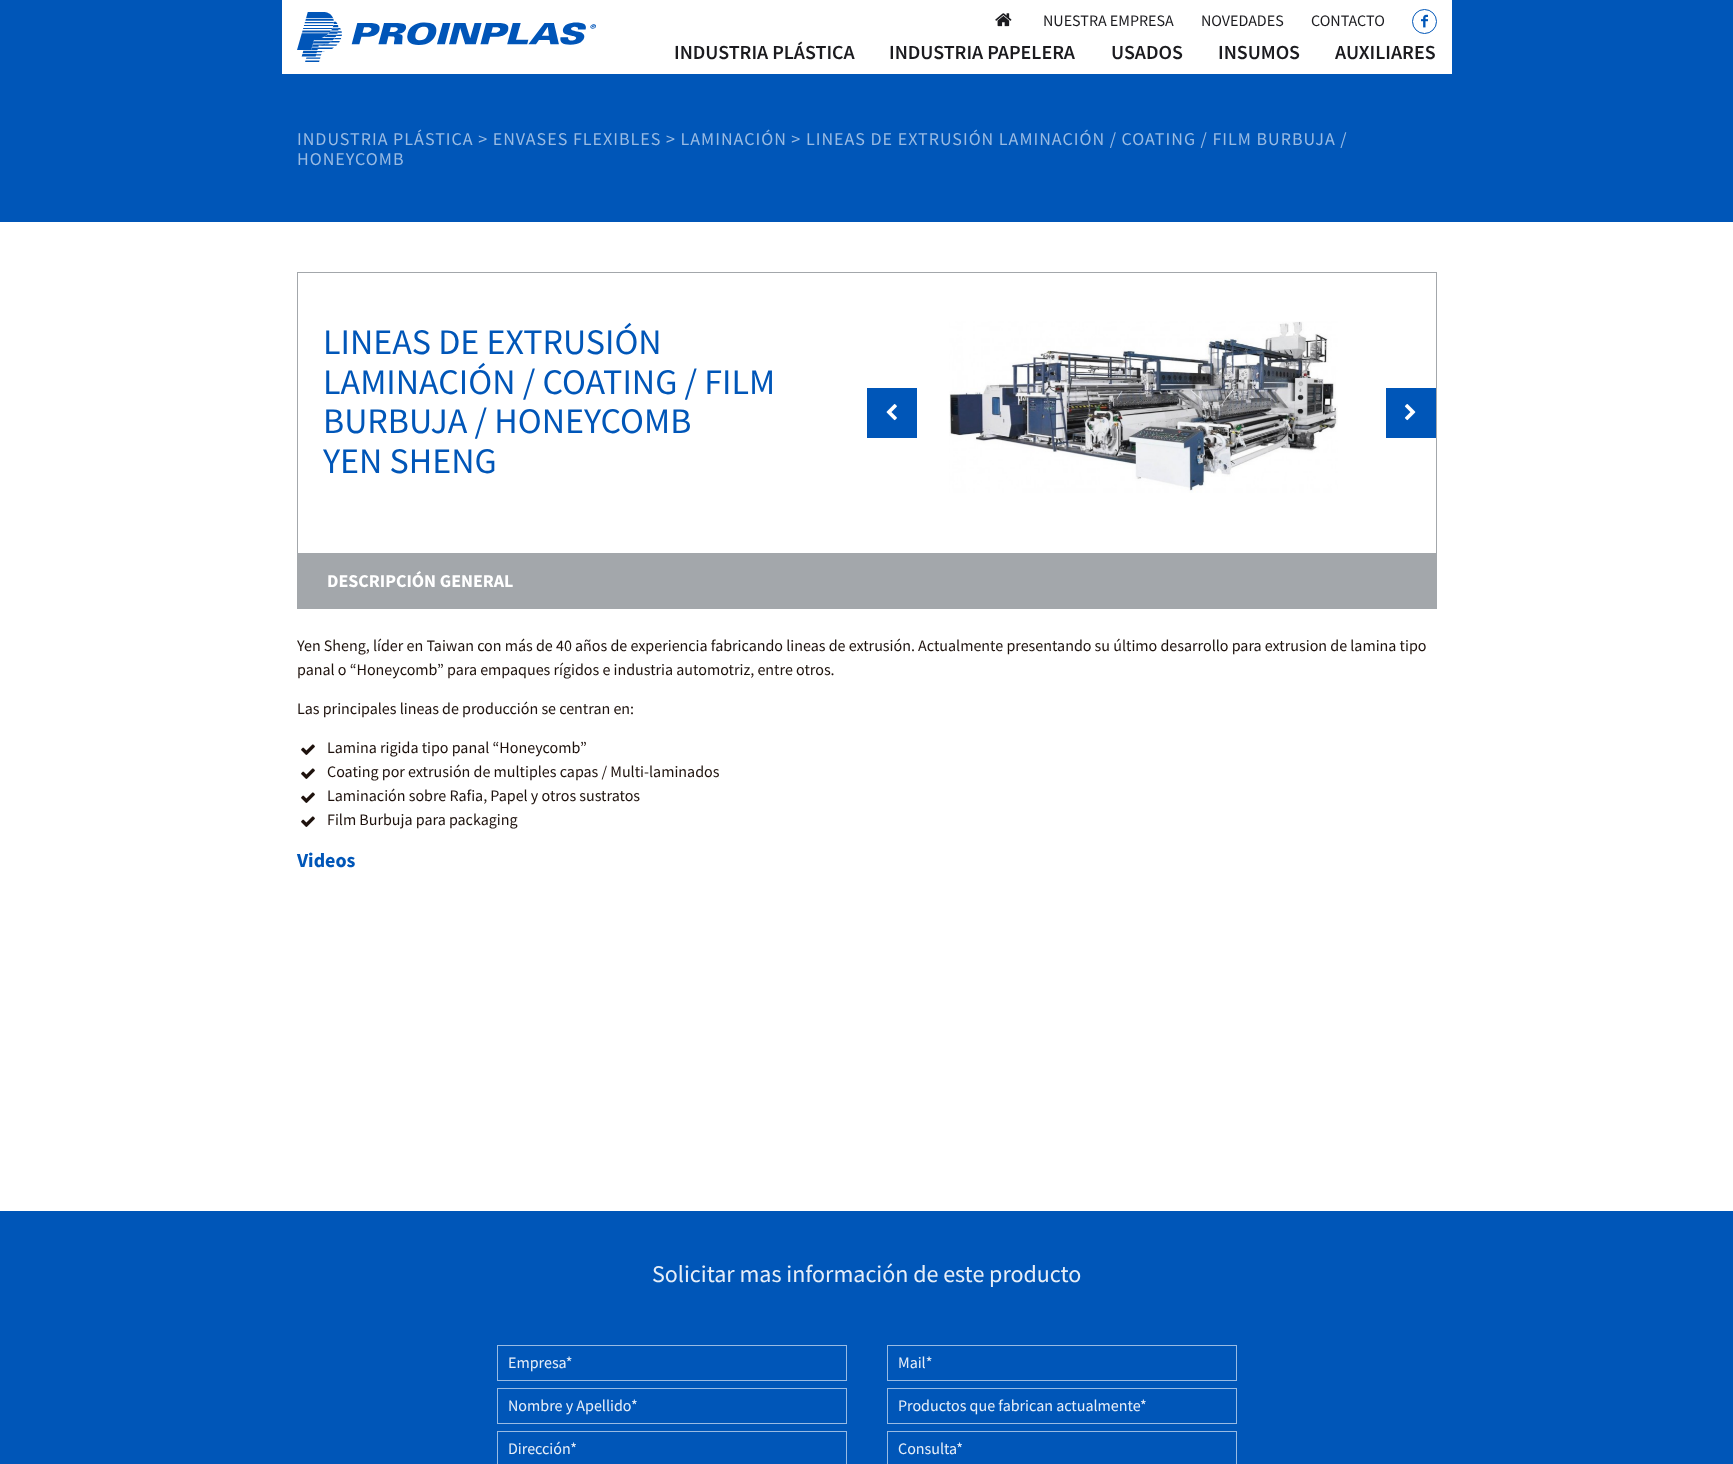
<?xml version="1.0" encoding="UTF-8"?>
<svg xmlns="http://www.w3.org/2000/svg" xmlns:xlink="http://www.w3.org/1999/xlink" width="1733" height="1464">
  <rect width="100%" height="100%" fill="#ffffff" />
  <rect width="1733" height="222" fill="#0056b8" />
  <rect x="282" width="1170" height="74" fill="#ffffff" />
  <image x="297" y="12" width="299" height="50" xlink:href="image1.png" />
  <image x="995" y="13" width="17" height="14" xlink:href="image2.png" />
  <circle cx="1424.5" cy="21.5" r="12" fill="none" stroke="#0056b8" />
  <image x="1421" y="14" width="7" height="14" xlink:href="image3.png" />
  <rect x="297.5" y="272.5" width="1139" height="281" fill="none" stroke="#a3a7ab" />
  <image x="949" y="321" width="389" height="172" xlink:href="image4.png" />
  <rect x="867" y="388" width="50" height="50" fill="#0056b8" />
  <image x="886" y="404" width="11" height="17" xlink:href="image5.png" />
  <rect x="1386" y="388" width="50" height="50" fill="#0056b8" />
  <image x="1404" y="404" width="12" height="17" xlink:href="image6.png" />
  <rect x="297" y="554" width="1140" height="55" fill="#a3a7ab" />
  <image x="301" y="744" width="14" height="11" xlink:href="image7.png" />
  <image x="301" y="768" width="14" height="11" xlink:href="image7.png" />
  <image x="301" y="792" width="14" height="11" xlink:href="image7.png" />
  <image x="301" y="816" width="14" height="11" xlink:href="image7.png" />
  <rect y="1211" width="1733" height="253" fill="#0056b8" />
  <rect x="497.5" y="1345.5" width="349" height="35" fill="none" stroke="#99bbe3" />
  <rect x="497.5" y="1388.5" width="349" height="35" fill="none" stroke="#99bbe3" />
  <rect x="497.5" y="1431.5" width="349" height="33" fill="none" stroke="#99bbe3" />
  <rect x="887.5" y="1345.5" width="349" height="35" fill="none" stroke="#99bbe3" />
  <rect x="887.5" y="1388.5" width="349" height="35" fill="none" stroke="#99bbe3" />
  <rect x="887.5" y="1431.5" width="349" height="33" fill="none" stroke="#99bbe3" />
  <text x="1043" y="26" style="font-family: Source Sans Pro; font-size: 16px; fill: #1b1b1f">NUESTRA EMPRESA</text>
  <text x="1201" y="26" style="font-family: Source Sans Pro; font-size: 16px; fill: #1b1b1f">NOVEDADES</text>
  <text x="1311" y="26" style="font-family: Source Sans Pro; font-size: 16px; fill: #1b1b1f">CONTACTO</text>
  <text x="674" y="59" style="font-family: Source Sans Pro; font-size: 20px; font-weight: 600; fill: #1b1b1f">INDUSTRIA PLÁSTICA</text>
  <text x="889" y="59" style="font-family: Source Sans Pro; font-size: 20px; font-weight: 600; fill: #1b1b1f">INDUSTRIA PAPELERA</text>
  <text x="1111" y="59" style="font-family: Source Sans Pro; font-size: 20px; font-weight: 600; fill: #1b1b1f">USADOS</text>
  <text x="1218" y="59" style="font-family: Source Sans Pro; font-size: 20px; font-weight: 600; fill: #1b1b1f">INSUMOS</text>
  <text x="1335" y="59" style="font-family: Source Sans Pro; font-size: 20px; font-weight: 600; fill: #1b1b1f">AUXILIARES</text>
  <text x="297" y="145" style="font-family: Source Sans Pro; font-size: 18px; letter-spacing: 1px; fill: #99bbe3">INDUSTRIA PLÁSTICA &gt; ENVASES FLEXIBLES &gt; LAMINACIÓN &gt; LINEAS DE EXTRUSIÓN LAMINACIÓN / COATING / FILM BURBUJA /</text>
  <text x="297" y="165" style="font-family: Source Sans Pro; font-size: 18px; letter-spacing: 1px; fill: #99bbe3">HONEYCOMB</text>
  <text x="323" y="354" style="font-family: Source Sans Pro; font-size: 36px; fill: #0056b8">LINEAS DE EXTRUSIÓN</text>
  <text x="323" y="394" style="font-family: Source Sans Pro; font-size: 36px; fill: #0056b8">LAMINACIÓN / COATING / FILM</text>
  <text x="323" y="433" style="font-family: Source Sans Pro; font-size: 36px; fill: #0056b8">BURBUJA / HONEYCOMB</text>
  <text x="323" y="473" style="font-family: Source Sans Pro; font-size: 36px; fill: #0056b8">YEN SHENG</text>
  <text x="327" y="587" style="font-family: Source Sans Pro; font-size: 18px; font-weight: bold; fill: #ffffff">DESCRIPCIÓN GENERAL</text>
  <text x="297" y="651" style="font-family: Source Sans Pro; font-size: 16px; fill: #1e120d">Yen Sheng, líder en Taiwan con más de 40 años de experiencia fabricando lineas de extrusión. Actualmente presentando su último desarrollo para extrusion de lamina tipo</text>
  <text x="297" y="675" style="font-family: Source Sans Pro; font-size: 16px; fill: #1e120d">panal o “Honeycomb” para empaques rígidos e industria automotriz, entre otros.</text>
  <text x="297" y="714" style="font-family: Source Sans Pro; font-size: 16px; fill: #1e120d">Las principales lineas de producción se centran en:</text>
  <text x="327" y="753" style="font-family: Source Sans Pro; font-size: 16px; fill: #1e120d">Lamina rigida tipo panal “Honeycomb”</text>
  <text x="327" y="777" style="font-family: Source Sans Pro; font-size: 16px; fill: #1e120d">Coating por extrusión de multiples capas / Multi-laminados</text>
  <text x="327" y="801" style="font-family: Source Sans Pro; font-size: 16px; fill: #1e120d">Laminación sobre Rafia, Papel y otros sustratos</text>
  <text x="327" y="825" style="font-family: Source Sans Pro; font-size: 16px; fill: #1e120d">Film Burbuja para packaging</text>
  <text x="297" y="867" style="font-family: Source Sans Pro; font-size: 20px; font-weight: bold; fill: #0056b8">Videos</text>
  <text x="652" y="1282" style="font-family: Source Sans Pro; font-size: 24px; fill: #e6eef8">Solicitar mas información de este producto</text>
  <text x="508" y="1368" style="font-family: Source Sans Pro; font-size: 16px; fill: #e6eef8">Empresa*</text>
  <text x="508" y="1411" style="font-family: Source Sans Pro; font-size: 16px; fill: #e6eef8">Nombre y Apellido*</text>
  <text x="508" y="1454" style="font-family: Source Sans Pro; font-size: 16px; fill: #e6eef8">Dirección*</text>
  <text x="898" y="1368" style="font-family: Source Sans Pro; font-size: 16px; fill: #e6eef8">Mail*</text>
  <text x="898" y="1411" style="font-family: Source Sans Pro; font-size: 16px; fill: #e6eef8">Productos que fabrican actualmente*</text>
  <text x="898" y="1454" style="font-family: Source Sans Pro; font-size: 16px; fill: #e6eef8">Consulta*</text>
</svg>
